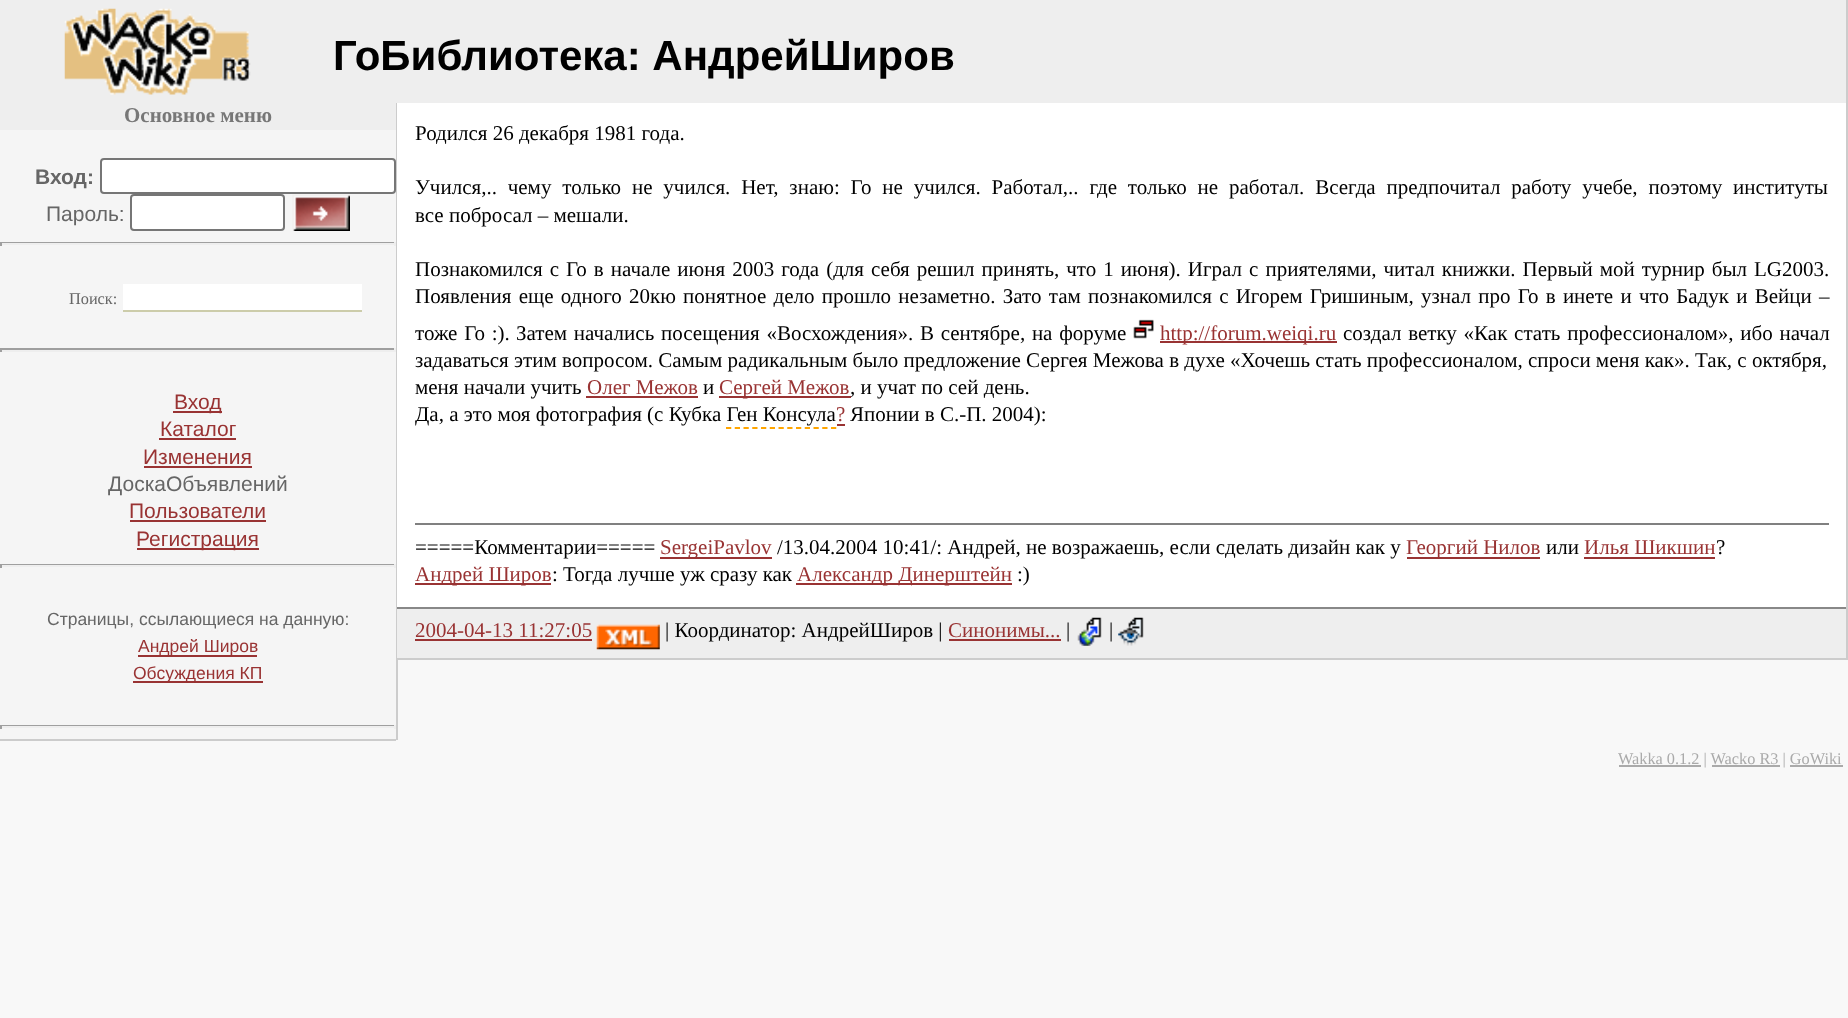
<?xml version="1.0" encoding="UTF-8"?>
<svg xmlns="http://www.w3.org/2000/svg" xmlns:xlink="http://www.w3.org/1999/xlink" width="1848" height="1018">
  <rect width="100%" height="100%" fill="#f8f8f8" />
  <rect width="1846" height="103" fill="#eeeeee" />
  <image x="64" y="8" width="187" height="87" xlink:href="image1.png" />
  <rect x="1846" width="2" height="607" fill="#cccccc" />
  <rect y="130" width="396" height="609" fill="#f5f5f5" />
  <rect y="739" width="396" height="2" fill="#cccccc" />
  <rect y="103" width="396" height="27" fill="#eeeeee" />
  <rect x="101" y="159" width="294" height="34" rx="3" fill="#ffffff" stroke="#767676" stroke-width="2" />
  <rect x="131" y="195" width="153" height="35" rx="3" fill="#ffffff" stroke="#767676" stroke-width="2" />
  <image x="292" y="194" width="58" height="37" xlink:href="image2.png" />
  <rect y="242" width="396" height="1" fill="#9f9f9f" />
  <rect x="394" y="242" width="2" height="4" fill="#eeeeee" />
  <rect y="243" width="396" height="2" fill="#eeeeee" />
  <rect y="242" width="2" height="4" fill="#9f9f9f" />
  <rect x="123" y="284" width="239" height="26" fill="#ffffff" />
  <rect x="123" y="310" width="239" height="2" fill="#ccccaa" />
  <rect y="348" width="396" height="2" fill="#9f9f9f" />
  <rect x="394" y="348" width="2" height="4" fill="#eeeeee" />
  <rect y="350" width="396" height="2" fill="#eeeeee" />
  <rect y="348" width="2" height="4" fill="#9f9f9f" />
  <rect x="173" y="411" width="49" height="2" fill="#993333" />
  <rect x="159" y="438" width="77" height="2" fill="#993333" />
  <rect x="144" y="466" width="108" height="2" fill="#993333" />
  <rect x="130" y="520" width="136" height="2" fill="#993333" />
  <rect x="137" y="548" width="122" height="2" fill="#993333" />
  <rect y="564" width="396" height="1" fill="#9f9f9f" />
  <rect x="394" y="564" width="2" height="4" fill="#eeeeee" />
  <rect y="565" width="396" height="2" fill="#eeeeee" />
  <rect y="564" width="2" height="4" fill="#9f9f9f" />
  <rect x="138" y="655" width="119" height="2" fill="#993333" />
  <rect x="133" y="681" width="130" height="2" fill="#993333" />
  <rect y="725" width="396" height="1" fill="#9f9f9f" />
  <rect x="394" y="725" width="2" height="4" fill="#eeeeee" />
  <rect y="726" width="396" height="2" fill="#eeeeee" />
  <rect y="725" width="2" height="4" fill="#9f9f9f" />
  <rect x="396" y="103" width="2" height="637" fill="#cccccc" />
  <rect x="397" y="103" width="1449" height="504" fill="#ffffff" />
  <image x="1133" y="319" width="21" height="20" xlink:href="image3.png" />
  <rect x="1160" y="341" width="177" height="2" fill="#993333" />
  <rect x="586" y="396" width="112" height="2" fill="#993333" />
  <rect x="719" y="396" width="132" height="2" fill="#993333" />
  <rect x="837" y="424" width="8" height="2" fill="#993333" />
  <path d="M 726 428 h 110.5" fill="none" stroke="#ffa500" stroke-width="1.8" stroke-dasharray="5.25 3.5" />
  <rect x="415" y="523" width="1414" height="2" fill="#808080" />
  <rect x="660" y="557" width="112" height="2" fill="#993333" />
  <rect x="1407" y="557" width="133" height="2" fill="#993333" />
  <rect x="1584" y="557" width="131" height="2" fill="#993333" />
  <rect x="415" y="583" width="136" height="2" fill="#993333" />
  <rect x="796" y="583" width="216" height="2" fill="#993333" />
  <rect x="397" y="609" width="1449" height="49" fill="#eeeeee" />
  <rect x="397" y="607" width="1451" height="2" fill="#888888" />
  <rect x="1846" y="607" width="2" height="53" fill="#cccccc" />
  <rect x="397" y="658" width="1451" height="2" fill="#cccccc" />
  <rect x="415" y="639" width="177" height="2" fill="#993333" />
  <image x="596" y="624" width="64" height="26" xlink:href="image4.png" />
  <rect x="949" y="639" width="112" height="2" fill="#993333" />
  <image x="1077" y="617" width="25" height="29" xlink:href="image5.png" />
  <image x="1118" y="617" width="26" height="29" xlink:href="image6.png" />
  <rect x="1619" y="765" width="82" height="2" fill="#aaaaaa" />
  <rect x="1712" y="765" width="68" height="2" fill="#aaaaaa" />
  <rect x="1790" y="765" width="53" height="2" fill="#aaaaaa" />
  <text x="333" y="70" style="font-family: Liberation Sans; font-size: 42px; font-weight: bold; fill: #000000">ГоБиблиотека: АндрейШиров</text>
  <text x="124" y="122" style="font-family: Liberation Serif; font-size: 21px; font-weight: bold; fill: #777777">Основное меню</text>
  <text x="35" y="184" style="font-family: Liberation Sans; font-size: 21px; font-weight: bold; fill: #666666">Вход:</text>
  <text x="46" y="221" style="font-family: Liberation Sans; font-size: 21px; fill: #666666">Пароль:</text>
  <text x="69" y="304" style="font-family: Liberation Serif; font-size: 16.3px; fill: #666666">Поиск:</text>
  <text x="174" y="409" style="font-family: Liberation Sans; font-size: 21px; fill: #993333">Вход</text>
  <text x="160" y="436" style="font-family: Liberation Sans; font-size: 21px; fill: #993333">Каталог</text>
  <text x="143" y="464" style="font-family: Liberation Sans; font-size: 21px; fill: #993333">Изменения</text>
  <text x="108" y="491" style="font-family: Liberation Sans; font-size: 21px; fill: #666666">ДоскаОбъявлений</text>
  <text x="129" y="518" style="font-family: Liberation Sans; font-size: 21px; fill: #993333">Пользователи</text>
  <text x="136" y="546" style="font-family: Liberation Sans; font-size: 21px; fill: #993333">Регистрация</text>
  <text x="47" y="625" style="font-family: Liberation Sans; font-size: 17.5px; fill: #666666">Страницы, ссылающиеся на данную:</text>
  <text x="138" y="652" style="font-family: Liberation Sans; font-size: 17.5px; fill: #993333">Андрей Широв</text>
  <text x="133" y="679" style="font-family: Liberation Sans; font-size: 17.5px; fill: #993333">Обсуждения КП</text>
  <text x="415" y="140" style="font-family: Liberation Serif; font-size: 21px; fill: #000000">Родился 26 декабря 1981 года.</text>
  <text x="415" y="194" word-spacing="5.6" style="font-family: Liberation Serif; font-size: 21px; fill: #000000">Учился,.. чему только не учился. Нет, знаю: Го не учился. Работал,.. где только не работал. Всегда предпочитал работу учебе, поэтому институты</text>
  <text x="415" y="222" style="font-family: Liberation Serif; font-size: 21px; fill: #000000">все побросал – мешали.</text>
  <text x="415" y="276" word-spacing="1.75" style="font-family: Liberation Serif; font-size: 21px; fill: #000000">Познакомился с Го в начале июня 2003 года (для себя решил принять, что 1 июня). Играл с приятелями, читал книжки. Первый мой турнир был LG2003.</text>
  <text x="415" y="303" word-spacing="2" style="font-family: Liberation Serif; font-size: 21px; fill: #000000">Появления еще одного 20кю понятное дело прошло незаметно. Зато там познакомился с Игорем Гришиным, узнал про Го в инете и что Бадук и Вейци –</text>
  <text x="415" y="340" word-spacing="1.5" style="font-family: Liberation Serif; font-size: 21px; fill: #000000">тоже Го :).</text>
  <text x="516" y="340" word-spacing="1.5" style="font-family: Liberation Serif; font-size: 21px; fill: #000000">Затем начались посещения «Восхождения». В сентябре, на форуме</text>
  <text x="1160" y="340" style="font-family: Liberation Serif; font-size: 21px; fill: #993333">http://forum.weiqi.ru</text>
  <text x="1343" y="340" word-spacing="1.5" style="font-family: Liberation Serif; font-size: 21px; fill: #000000">создал ветку «Как стать профессионалом», ибо начал</text>
  <text x="415" y="367" style="font-family: Liberation Serif; font-size: 21px; fill: #000000">задаваться этим вопросом. Самым радикальным было предложение Сергея Межова в духе «Хочешь стать профессионалом, спроси меня как». Так, с октября,</text>
  <text x="415" y="394" style="font-family: Liberation Serif; font-size: 21px; fill: #000000">меня начали учить</text>
  <text x="587" y="394" style="font-family: Liberation Serif; font-size: 21px; fill: #993333">Олег Межов</text>
  <text x="703" y="394" style="font-family: Liberation Serif; font-size: 21px; fill: #000000">и</text>
  <text x="719" y="394" style="font-family: Liberation Serif; font-size: 21px; fill: #993333">Сергей Межов</text>
  <text x="850" y="394" style="font-family: Liberation Serif; font-size: 21px; fill: #000000">, и учат по сей день.</text>
  <text x="415" y="421" style="font-family: Liberation Serif; font-size: 21px; fill: #000000">Да, а это моя фотография (с Кубка Ген Консула</text>
  <text x="836" y="421" style="font-family: Liberation Serif; font-size: 21px; fill: #993333">?</text>
  <text x="850" y="421" style="font-family: Liberation Serif; font-size: 21px; fill: #000000">Японии в С.-П. 2004):</text>
  <text x="415" y="554" style="font-family: Liberation Serif; font-size: 21px; fill: #000000">=====Комментарии=====</text>
  <text x="660" y="554" style="font-family: Liberation Serif; font-size: 21px; fill: #993333">SergeiPavlov</text>
  <text x="777" y="554" style="font-family: Liberation Serif; font-size: 21px; fill: #000000">/13.04.2004 10:41/: Андрей, не возражаешь, если сделать дизайн как у</text>
  <text x="1406" y="554" style="font-family: Liberation Serif; font-size: 21px; fill: #993333">Георгий Нилов</text>
  <text x="1546" y="554" style="font-family: Liberation Serif; font-size: 21px; fill: #000000">или</text>
  <text x="1584" y="554" style="font-family: Liberation Serif; font-size: 21px; fill: #993333">Илья Шикшин</text>
  <text x="1716" y="554" style="font-family: Liberation Serif; font-size: 21px; fill: #000000">?</text>
  <text x="415" y="581" style="font-family: Liberation Serif; font-size: 21px; fill: #993333">Андрей Широв</text>
  <text x="552" y="581" style="font-family: Liberation Serif; font-size: 21px; fill: #000000">: Тогда лучше уж сразу как</text>
  <text x="797" y="581" style="font-family: Liberation Serif; font-size: 21px; fill: #993333">Александр Динерштейн</text>
  <text x="1017" y="581" style="font-family: Liberation Serif; font-size: 21px; fill: #000000">:)</text>
  <text x="415" y="637" style="font-family: Liberation Serif; font-size: 21px; fill: #993333">2004-04-13 11:27:05</text>
  <text x="665" y="637" style="font-family: Liberation Serif; font-size: 21px; fill: #000000">| Координатор: АндрейШиров |</text>
  <text x="948" y="637" style="font-family: Liberation Serif; font-size: 21px; fill: #993333">Синонимы...</text>
  <text x="1066" y="637" style="font-family: Liberation Serif; font-size: 21px; fill: #000000">|</text>
  <text x="1109" y="637" style="font-family: Liberation Serif; font-size: 21px; fill: #000000">|</text>
  <text x="1618" y="764" style="font-family: Liberation Serif; font-size: 16.3px; fill: #aaaaaa">Wakka 0.1.2 | Wacko R3 | GoWiki</text>
</svg>
